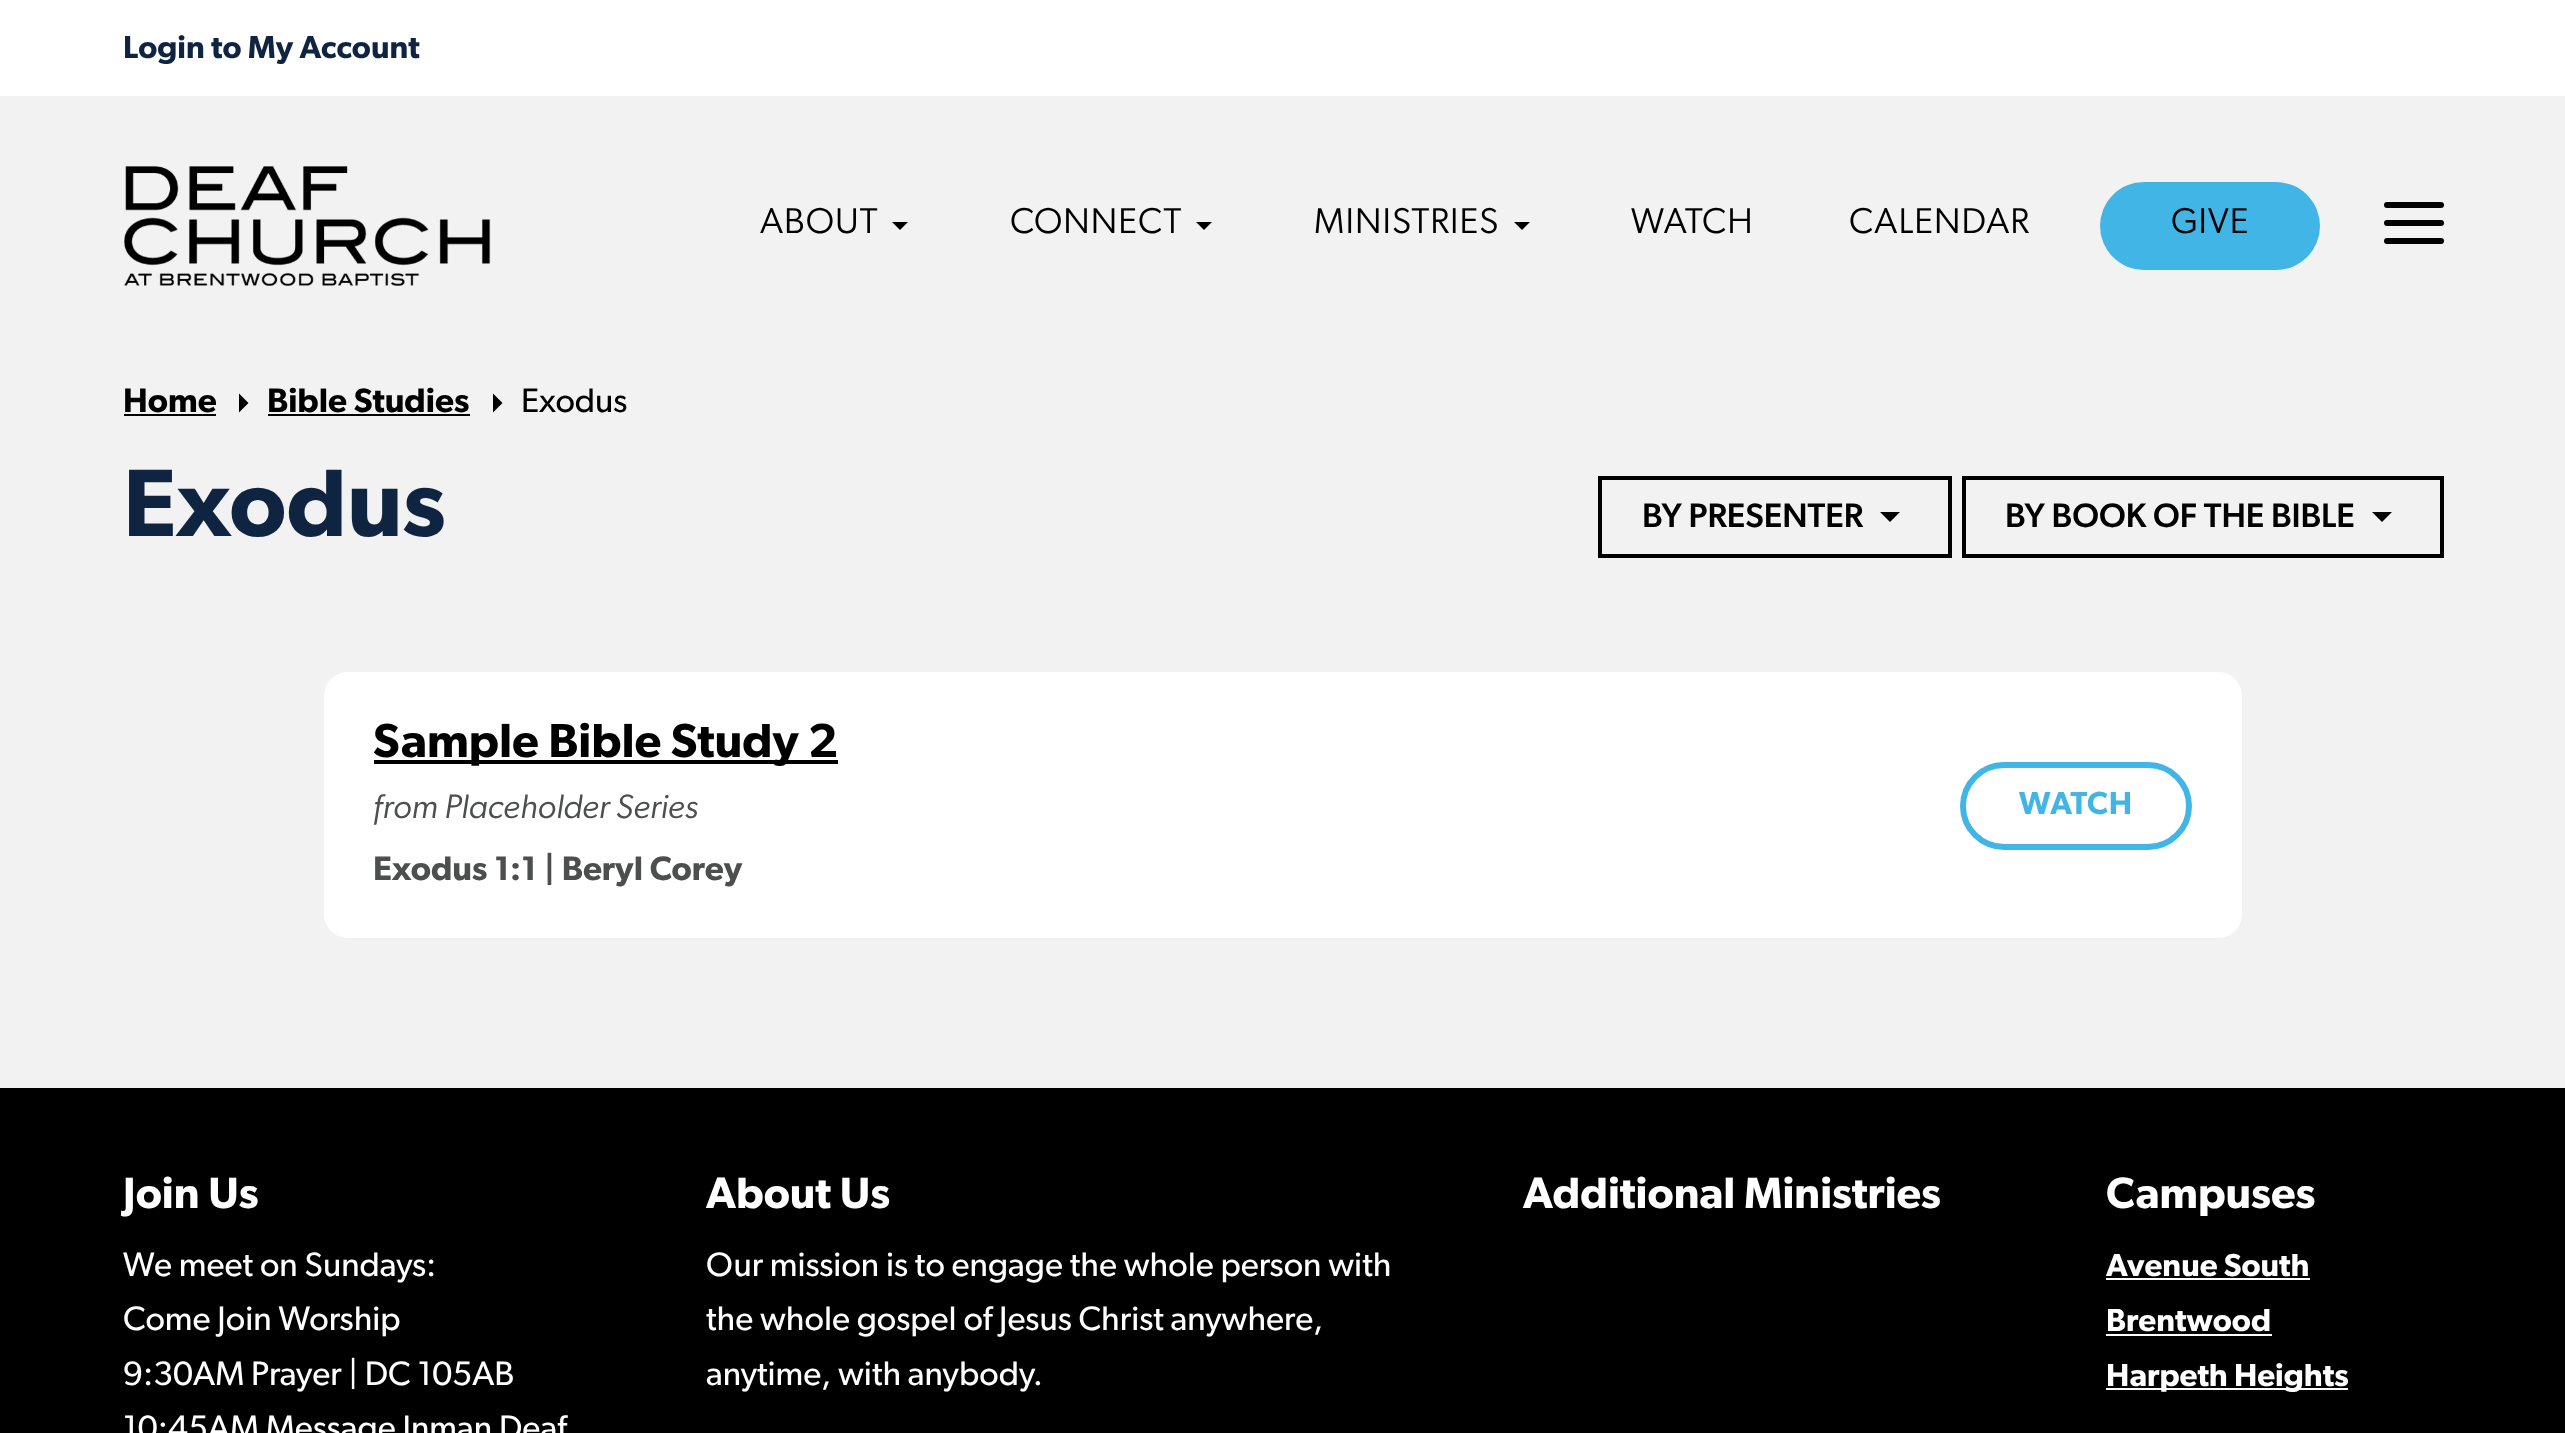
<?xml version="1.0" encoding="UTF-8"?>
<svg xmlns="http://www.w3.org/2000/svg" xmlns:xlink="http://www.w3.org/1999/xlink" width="2565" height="1433">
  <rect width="100%" height="100%" fill="#f2f2f2" />
  <rect width="2565" height="96" fill="#ffffff" />
  <image x="124" y="166" width="367" height="120" xlink:href="image1.png" />
  <path d="M 892 222 l 8 8 l 8 -8 z" fill="#000000" />
  <path d="M 1196 222 l 8 8 l 8 -8 z" fill="#000000" />
  <path d="M 1514 222 l 8 8 l 8 -8 z" fill="#000000" />
  <rect x="2100" y="182" width="220" height="88" rx="44" fill="#41b6e6" />
  <rect x="2384" y="202" width="60" height="6" rx="3" fill="#000000" />
  <rect x="2384" y="220" width="60" height="6" rx="3" fill="#000000" />
  <rect x="2384" y="238" width="60" height="6" rx="3" fill="#000000" />
  <rect x="124" y="414" width="92" height="2" fill="#000000" />
  <path d="M 239 412.5 l 9.5 -9.5 l -9.5 -9.5 z" fill="#000000" />
  <rect x="268" y="414" width="202" height="2" fill="#000000" />
  <path d="M 493 412.5 l 9.5 -9.5 l -9.5 -9.5 z" fill="#000000" />
  <rect x="1600" y="478" width="350" height="78" fill="none" stroke="#000000" stroke-width="4" />
  <path d="M 1880 512 l 10 10 l 10 -10 z" fill="#000000" />
  <rect x="1964" y="478" width="478" height="78" fill="none" stroke="#000000" stroke-width="4" />
  <path d="M 2372 512 l 10 10 l 10 -10 z" fill="#000000" />
  <rect x="324" y="672" width="1918" height="266" rx="24" fill="#ffffff" />
  <rect x="374" y="760" width="464" height="4" fill="#000000" />
  <rect x="1963" y="765" width="226" height="82" rx="41" fill="none" stroke="#41b6e6" stroke-width="6" />
  <rect y="1088" width="2565" height="345" fill="#000000" />
  <rect x="2106" y="1278" width="204" height="2" fill="#ffffff" />
  <rect x="2106" y="1334" width="166" height="2" fill="#ffffff" />
  <rect x="2106" y="1388" width="242" height="2" fill="#ffffff" />
  <text x="123" y="58" style="font-family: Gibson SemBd; font-size: 32px; font-weight: 600; fill: #0e2441">Login to My Account</text>
  <text x="760" y="233" style="font-family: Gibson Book; font-size: 36px; letter-spacing: 1px; fill: #000000">ABOUT</text>
  <text x="1010" y="233" style="font-family: Gibson Book; font-size: 36px; letter-spacing: 1px; fill: #000000">CONNECT</text>
  <text x="1314" y="233" style="font-family: Gibson Book; font-size: 36px; letter-spacing: 1px; fill: #000000">MINISTRIES</text>
  <text x="1631" y="233" style="font-family: Gibson Book; font-size: 36px; letter-spacing: 1px; fill: #000000">WATCH</text>
  <text x="1849" y="233" style="font-family: Gibson Book; font-size: 36px; letter-spacing: 1px; fill: #000000">CALENDAR</text>
  <text x="2171" y="233" style="font-family: Gibson Book; font-size: 36px; letter-spacing: 1px; fill: #000000">GIVE</text>
  <text x="123" y="412" style="font-family: Gibson SemBd; font-size: 34px; font-weight: 600; fill: #000000">Home</text>
  <text x="267" y="412" style="font-family: Gibson SemBd; font-size: 34px; font-weight: 600; fill: #000000">Bible Studies</text>
  <text x="521" y="412" style="font-family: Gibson; font-size: 34px; fill: #000000">Exodus</text>
  <text x="123" y="536" style="font-family: Gibson SemBd; font-size: 96px; font-weight: 600; fill: #0e2441">Exodus</text>
  <text x="1642" y="527" style="font-family: Gibson; font-size: 34px; font-weight: 500; fill: #000000">BY PRESENTER</text>
  <text x="2005" y="527" style="font-family: Gibson; font-size: 34px; font-weight: 500; fill: #000000">BY BOOK OF THE BIBLE</text>
  <text x="373" y="757" style="font-family: Gibson SemBd; font-size: 48px; font-weight: 600; fill: #000000">Sample Bible Study 2</text>
  <text x="373" y="818" style="font-family: Gibson; font-size: 34px; font-style: italic; fill: #4d4f4e">from Placeholder Series</text>
  <text x="373" y="880" style="font-family: Gibson SemBd; font-size: 34px; font-weight: 600; fill: #4d4f4e">Exodus 1:1 | Beryl Corey</text>
  <text x="2019" y="814" style="font-family: Gibson SemBd; font-size: 32px; font-weight: 600; letter-spacing: 1px; fill: #41b6e6">WATCH</text>
  <text x="123" y="1208" style="font-family: Gibson SemBd; font-size: 44px; font-weight: 600; fill: #ffffff">Join Us</text>
  <text x="123" y="1276" style="font-family: Gibson; font-size: 34px; fill: #ffffff">We meet on Sundays:</text>
  <text x="123" y="1330" style="font-family: Gibson; font-size: 34px; fill: #ffffff">Come Join Worship</text>
  <text x="123" y="1385" style="font-family: Gibson; font-size: 34px; fill: #ffffff">9:30AM Prayer | DC 105AB</text>
  <text x="123" y="1439" style="font-family: Gibson; font-size: 34px; fill: #ffffff">10:45AM Message Inman Deaf</text>
  <text x="706" y="1208" style="font-family: Gibson SemBd; font-size: 44px; font-weight: 600; fill: #ffffff">About Us</text>
  <text x="706" y="1276" style="font-family: Gibson; font-size: 34px; fill: #ffffff">Our mission is to engage the whole person with</text>
  <text x="706" y="1330" style="font-family: Gibson; font-size: 34px; fill: #ffffff">the whole gospel of Jesus Christ anywhere,</text>
  <text x="706" y="1385" style="font-family: Gibson; font-size: 34px; fill: #ffffff">anytime, with anybody.</text>
  <text x="1523" y="1208" style="font-family: Gibson SemBd; font-size: 44px; font-weight: 600; fill: #ffffff">Additional Ministries</text>
  <text x="2106" y="1208" style="font-family: Gibson SemBd; font-size: 44px; font-weight: 600; fill: #ffffff">Campuses</text>
  <text x="2106" y="1276" style="font-family: Gibson SemBd; font-size: 32px; font-weight: 600; fill: #ffffff">Avenue South</text>
  <text x="2106" y="1331" style="font-family: Gibson SemBd; font-size: 32px; font-weight: 600; fill: #ffffff">Brentwood</text>
  <text x="2106" y="1386" style="font-family: Gibson SemBd; font-size: 32px; font-weight: 600; fill: #ffffff">Harpeth Heights</text>
</svg>
